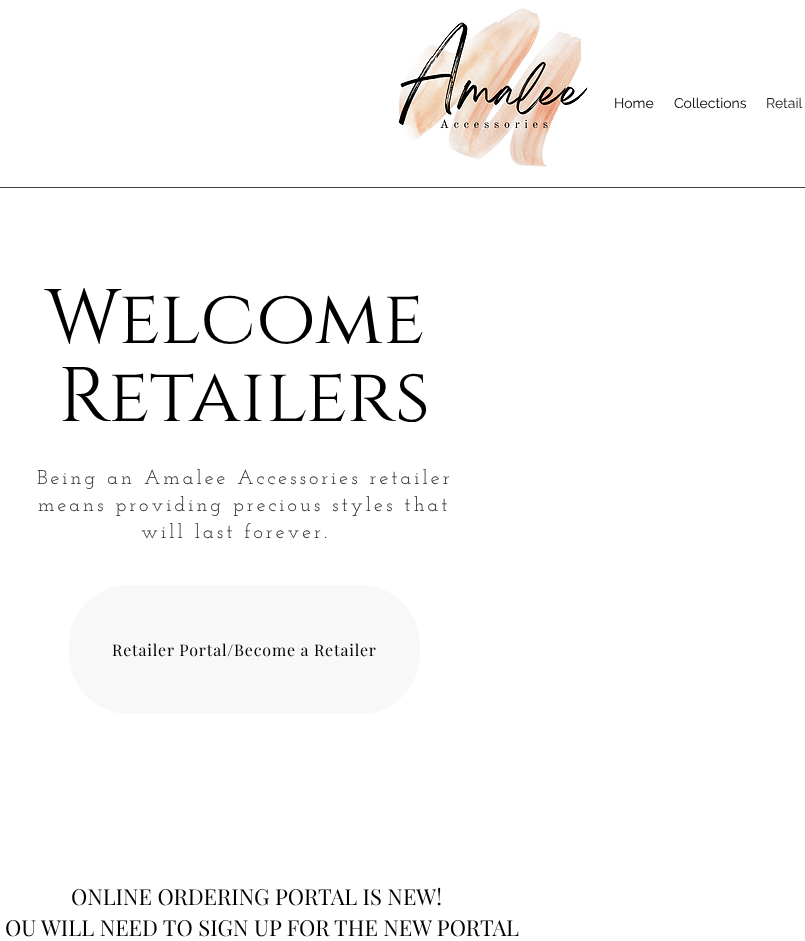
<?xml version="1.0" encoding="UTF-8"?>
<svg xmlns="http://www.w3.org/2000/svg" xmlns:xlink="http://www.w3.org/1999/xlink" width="805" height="941">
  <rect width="100%" height="100%" fill="#ffffff" />
  <image x="398" y="8" width="190" height="159" xlink:href="image1.png" />
  <rect y="187" width="805" height="1" fill="#424242" />
  <rect x="69" y="585" width="351" height="129" rx="60" fill="#f8f8f8" />
  <text x="614" y="108" style="font-family: Raleway; font-size: 14px; fill: #000000">Home</text>
  <text x="674" y="108" style="font-family: Raleway; font-size: 14px; fill: #000000">Collections</text>
  <text x="766" y="108" style="font-family: Raleway; font-size: 14px; fill: #191919">Retail</text>
  <text x="45" y="343" style="font-family: Cinzel; font-size: 77px; fill: #000000">Welcome</text>
  <text x="58" y="421" style="font-family: Cinzel; font-size: 77px; fill: #000000">Retailers</text>
  <text x="37" y="484" style="font-family: Josefin Slab; font-size: 20px; letter-spacing: 3px; fill: #292929">Being an Amalee Accessories retailer</text>
  <text x="38" y="511" style="font-family: Josefin Slab; font-size: 20px; letter-spacing: 3px; fill: #292929">means providing precious styles that</text>
  <text x="141" y="538" style="font-family: Josefin Slab; font-size: 20px; letter-spacing: 3px; fill: #292929">will last forever.</text>
  <text x="112" y="656" style="font-family: Playfair Display; font-size: 16px; letter-spacing: 0.8px; fill: #000000">Retailer Portal/Become a Retailer</text>
  <text x="71" y="905" style="font-family: Playfair Display; font-size: 22px; fill: #000000">ONLINE ORDERING PORTAL IS NEW!</text>
  <text x="5" y="936" style="font-family: Playfair Display; font-size: 22px; fill: #000000">OU WILL NEED TO SIGN UP FOR THE NEW PORTAL</text>
</svg>
